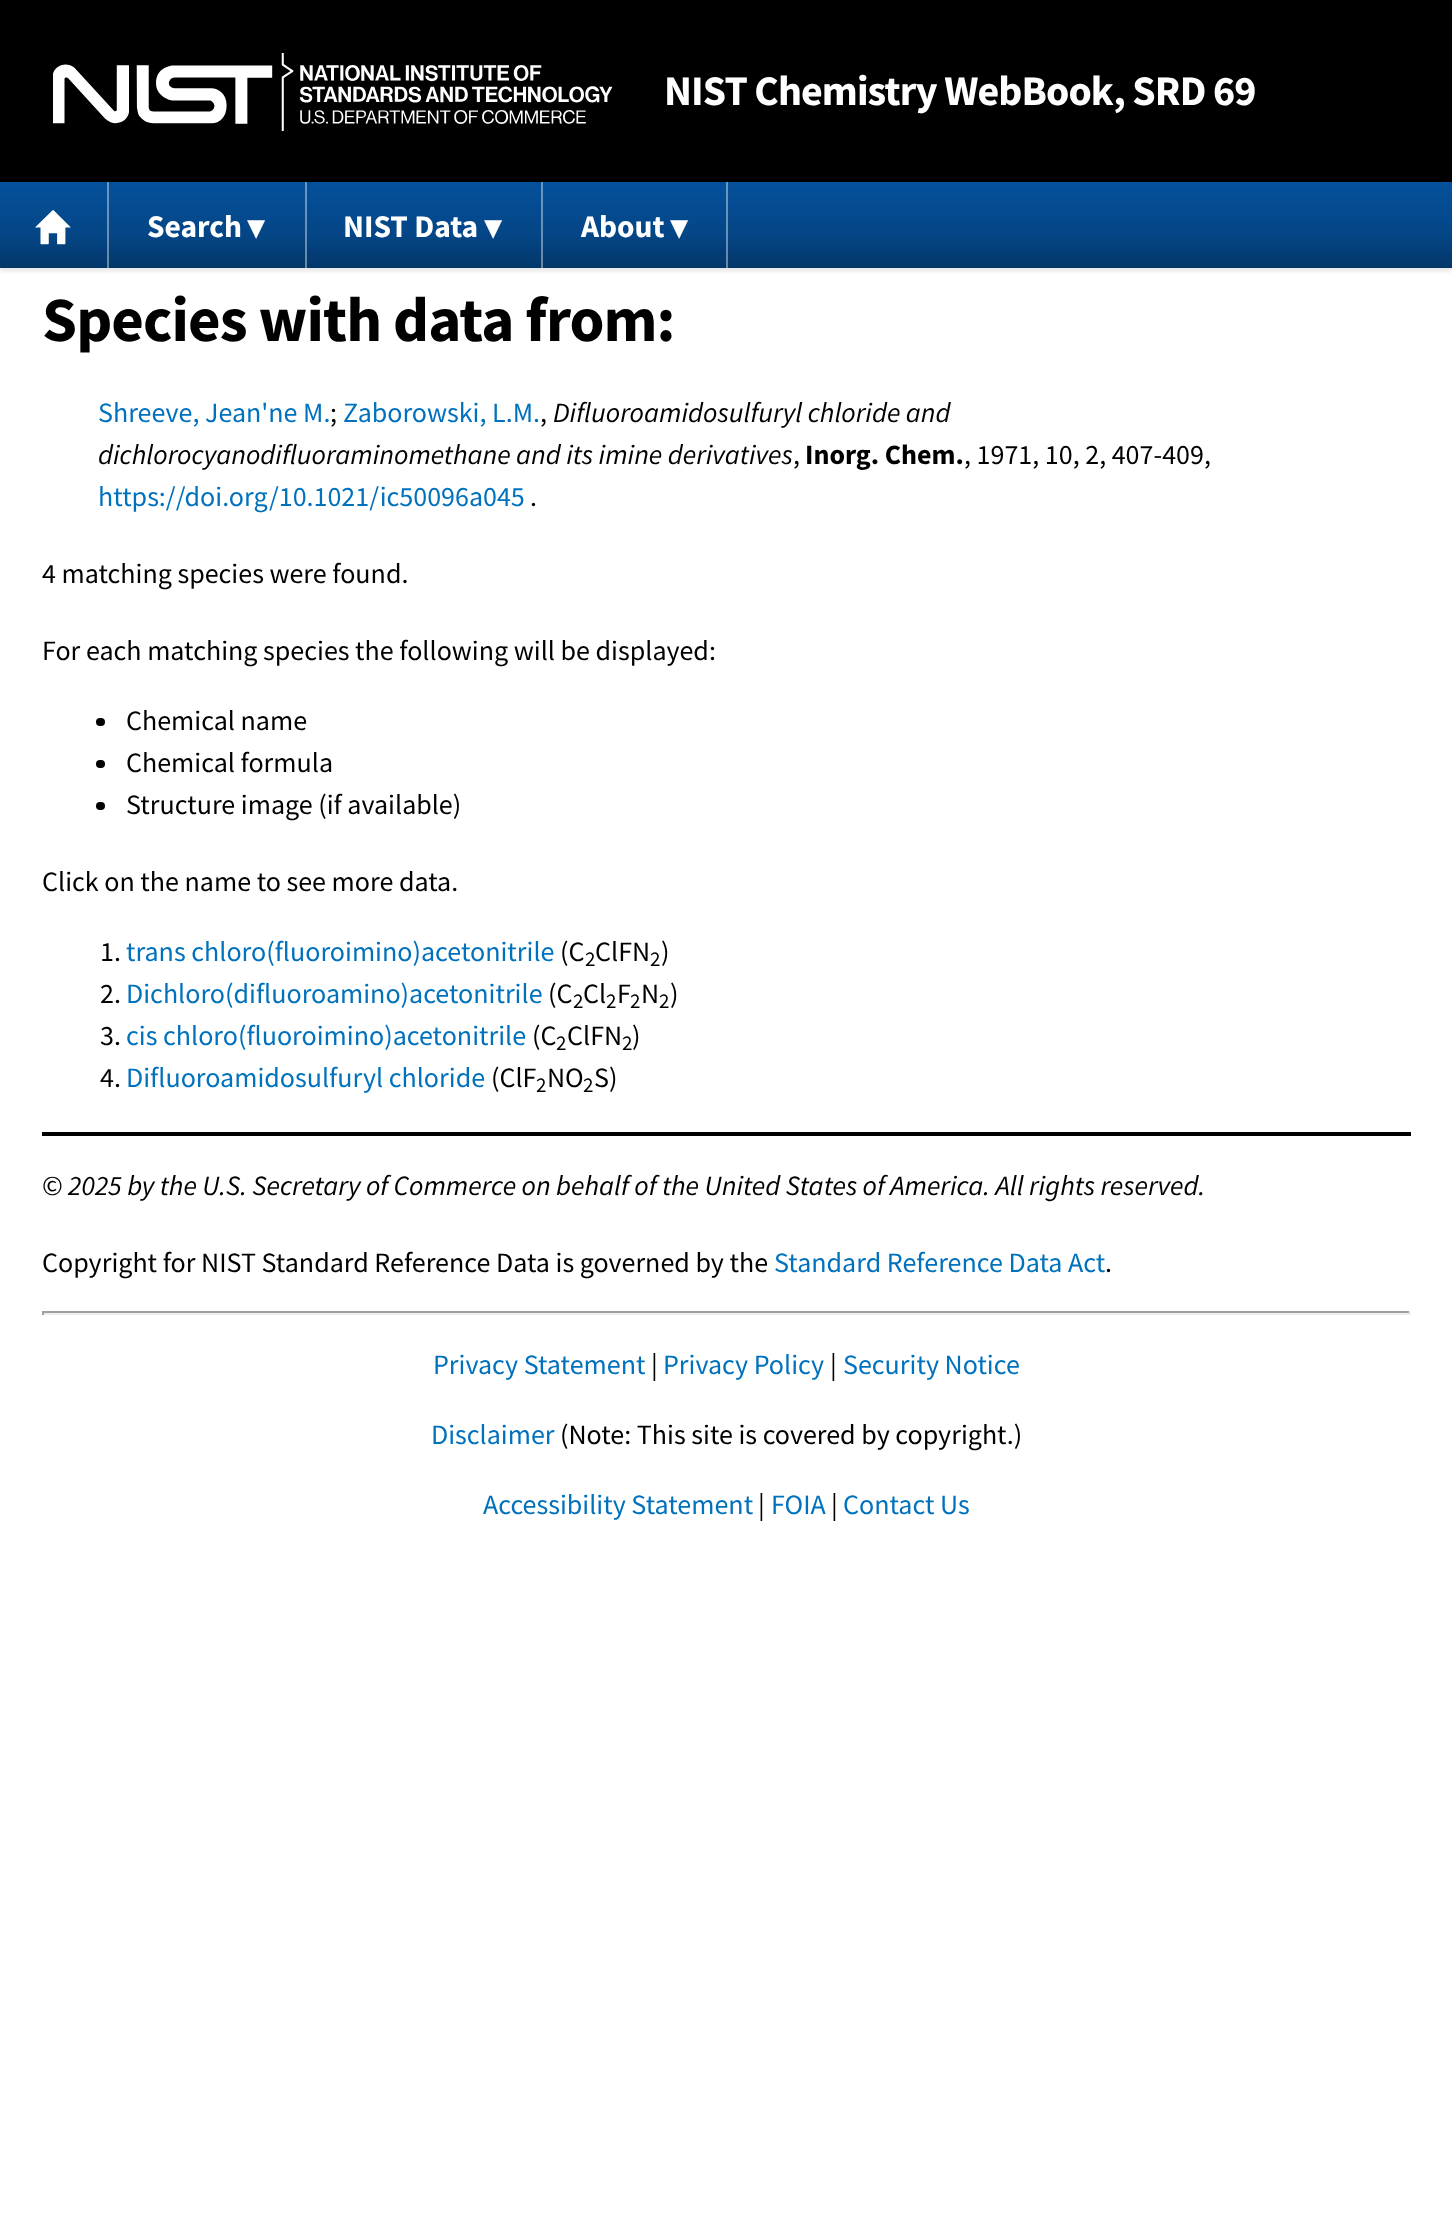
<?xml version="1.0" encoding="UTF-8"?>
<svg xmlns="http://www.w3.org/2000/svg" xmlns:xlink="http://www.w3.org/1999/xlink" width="1452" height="2217">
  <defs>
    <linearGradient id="g1" gradientUnits="userSpaceOnUse" x1="726" y1="182" x2="726" y2="268"><stop offset="0" stop-color="#04519b" /><stop offset="0.6" stop-color="#044687" /><stop offset="1" stop-color="#033769" /></linearGradient>
  </defs>
  <rect width="100%" height="100%" fill="#ffffff" />
  <rect y="186" width="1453" height="85" fill="#000000" fill-opacity="0.1" filter="blur(2px)" />
  <rect width="1452" height="182" fill="#000000" />
  <image x="53" y="53" width="560" height="78" xlink:href="image1.png" />
  <rect y="182" width="1452" height="86" fill="url(#g1)" />
  <rect x="107" y="182" width="2" height="86" fill="#ffffff" fill-opacity="0.4" />
  <image x="35" y="210" width="36" height="35" xlink:href="image2.png" />
  <rect x="305" y="182" width="2" height="86" fill="#ffffff" fill-opacity="0.4" />
  <rect x="541" y="182" width="2" height="86" fill="#ffffff" fill-opacity="0.4" />
  <rect x="726" y="182" width="2" height="86" fill="#ffffff" fill-opacity="0.4" />
  <rect x="96" y="718" width="9" height="8" rx="4" fill="#000000" />
  <rect x="96" y="760" width="9" height="8" rx="4" fill="#000000" />
  <rect x="96" y="802" width="9" height="8" rx="4" fill="#000000" />
  <rect x="42" y="1132" width="1369" height="4" fill="#000000" />
  <rect x="42" y="1311" width="1369" height="2" fill="#9f9f9f" />
  <rect x="1409" y="1311" width="2" height="4" fill="#eeeeee" />
  <rect x="42" y="1313" width="1369" height="2" fill="#eeeeee" />
  <rect x="42" y="1311" width="2" height="4" fill="#9f9f9f" />
  <text x="664" y="105" style="font-family: Source Sans Pro; font-size: 42px; font-weight: bold; letter-spacing: -0.9px; fill: #ffffff">NIST Chemistry WebBook, SRD 69</text>
  <text x="147" y="237" style="font-family: Source Sans Pro; font-size: 31.5px; font-weight: bold; fill: #ffffff">Search</text>
  <text x="246" y="237" style="font-family: Source Sans Pro; font-size: 23px; font-weight: bold; fill: #ffffff">▼</text>
  <text x="343" y="237" style="font-family: Source Sans Pro; font-size: 31.5px; font-weight: bold; fill: #ffffff">NIST Data</text>
  <text x="483" y="237" style="font-family: Source Sans Pro; font-size: 23px; font-weight: bold; fill: #ffffff">▼</text>
  <text x="581" y="237" style="font-family: Source Sans Pro; font-size: 31.5px; font-weight: bold; fill: #ffffff">About</text>
  <text x="669" y="237" style="font-family: Source Sans Pro; font-size: 23px; font-weight: bold; fill: #ffffff">▼</text>
  <text x="42" y="341" style="font-family: Source Sans Pro; font-size: 63px; font-weight: bold; letter-spacing: -0.9px; fill: #000000">Species with data from:</text>
  <text x="98" y="422" style="font-family: Source Sans Pro; font-size: 28px; fill: #0071bc">Shreeve, Jean'ne M.</text>
  <text x="330" y="422" style="font-family: Source Sans Pro; font-size: 28px; fill: #000000">;</text>
  <text x="343" y="422" style="font-family: Source Sans Pro; font-size: 28px; fill: #0071bc">Zaborowski, L.M.</text>
  <text x="540" y="422" style="font-family: Source Sans Pro; font-size: 28px; fill: #000000">,</text>
  <text x="553" y="422" style="font-family: Source Sans Pro; font-size: 28px; font-style: italic; fill: #000000">Difluoroamidosulfuryl chloride and</text>
  <text x="98" y="464" style="font-family: Source Sans Pro; font-size: 28px; font-style: italic; fill: #000000">dichlorocyanodifluoraminomethane and its imine derivatives</text>
  <text x="793" y="464" style="font-family: Source Sans Pro; font-size: 28px; fill: #000000">,</text>
  <text x="805" y="464" style="font-family: Source Sans Pro; font-size: 28px; font-weight: bold; fill: #000000">Inorg. Chem.</text>
  <text x="964" y="464" style="font-family: Source Sans Pro; font-size: 28px; fill: #000000">, 1971, 10, 2, 407-409,</text>
  <text x="98" y="506" style="font-family: Source Sans Pro; font-size: 28px; fill: #0071bc">https://doi.org/10.1021/ic50096a045</text>
  <text x="530" y="506" style="font-family: Source Sans Pro; font-size: 28px; fill: #000000">.</text>
  <text x="42" y="583" style="font-family: Source Sans Pro; font-size: 28px; fill: #000000">4 matching species were found.</text>
  <text x="42" y="660" style="font-family: Source Sans Pro; font-size: 28px; fill: #000000">For each matching species the following will be displayed:</text>
  <text x="126" y="730" style="font-family: Source Sans Pro; font-size: 28px; fill: #000000">Chemical name</text>
  <text x="126" y="772" style="font-family: Source Sans Pro; font-size: 28px; fill: #000000">Chemical formula</text>
  <text x="126" y="814" style="font-family: Source Sans Pro; font-size: 28px; fill: #000000">Structure image (if available)</text>
  <text x="42" y="891" style="font-family: Source Sans Pro; font-size: 28px; fill: #000000">Click on the name to see more data.</text>
  <text x="100" y="961" style="font-family: Source Sans Pro; font-size: 28px; fill: #000000">1.</text>
  <text x="126" y="961" style="font-family: Source Sans Pro; font-size: 28px; fill: #0071bc">trans chloro(fluoroimino)acetonitrile</text>
  <text x="560" y="961" style="font-family: Source Sans Pro; font-size: 28px; fill: #000000">(C</text>
  <text x="585" y="966" style="font-family: Source Sans Pro; font-size: 21px; fill: #000000">2</text>
  <text x="595" y="961" style="font-family: Source Sans Pro; font-size: 28px; fill: #000000">ClFN</text>
  <text x="650" y="966" style="font-family: Source Sans Pro; font-size: 21px; fill: #000000">2</text>
  <text x="661" y="961" style="font-family: Source Sans Pro; font-size: 28px; fill: #000000">)</text>
  <text x="100" y="1003" style="font-family: Source Sans Pro; font-size: 28px; fill: #000000">2.</text>
  <text x="126" y="1003" style="font-family: Source Sans Pro; font-size: 28px; fill: #0071bc">Dichloro(difluoroamino)acetonitrile</text>
  <text x="548" y="1003" style="font-family: Source Sans Pro; font-size: 28px; fill: #000000">(C</text>
  <text x="573" y="1008" style="font-family: Source Sans Pro; font-size: 21px; fill: #000000">2</text>
  <text x="583" y="1003" style="font-family: Source Sans Pro; font-size: 28px; fill: #000000">Cl</text>
  <text x="606" y="1008" style="font-family: Source Sans Pro; font-size: 21px; fill: #000000">2</text>
  <text x="617" y="1003" style="font-family: Source Sans Pro; font-size: 28px; fill: #000000">F</text>
  <text x="630" y="1008" style="font-family: Source Sans Pro; font-size: 21px; fill: #000000">2</text>
  <text x="641" y="1003" style="font-family: Source Sans Pro; font-size: 28px; fill: #000000">N</text>
  <text x="659" y="1008" style="font-family: Source Sans Pro; font-size: 21px; fill: #000000">2</text>
  <text x="670" y="1003" style="font-family: Source Sans Pro; font-size: 28px; fill: #000000">)</text>
  <text x="100" y="1045" style="font-family: Source Sans Pro; font-size: 28px; fill: #000000">3.</text>
  <text x="126" y="1045" style="font-family: Source Sans Pro; font-size: 28px; fill: #0071bc">cis chloro(fluoroimino)acetonitrile</text>
  <text x="532" y="1045" style="font-family: Source Sans Pro; font-size: 28px; fill: #000000">(C</text>
  <text x="556" y="1050" style="font-family: Source Sans Pro; font-size: 21px; fill: #000000">2</text>
  <text x="567" y="1045" style="font-family: Source Sans Pro; font-size: 28px; fill: #000000">ClFN</text>
  <text x="622" y="1050" style="font-family: Source Sans Pro; font-size: 21px; fill: #000000">2</text>
  <text x="632" y="1045" style="font-family: Source Sans Pro; font-size: 28px; fill: #000000">)</text>
  <text x="100" y="1087" style="font-family: Source Sans Pro; font-size: 28px; fill: #000000">4.</text>
  <text x="126" y="1087" style="font-family: Source Sans Pro; font-size: 28px; fill: #0071bc">Difluoroamidosulfuryl chloride</text>
  <text x="491" y="1087" style="font-family: Source Sans Pro; font-size: 28px; fill: #000000">(ClF</text>
  <text x="536" y="1092" style="font-family: Source Sans Pro; font-size: 21px; fill: #000000">2</text>
  <text x="547" y="1087" style="font-family: Source Sans Pro; font-size: 28px; fill: #000000">NO</text>
  <text x="583" y="1092" style="font-family: Source Sans Pro; font-size: 21px; fill: #000000">2</text>
  <text x="594" y="1087" style="font-family: Source Sans Pro; font-size: 28px; fill: #000000">S)</text>
  <text x="42" y="1195" style="font-family: Source Sans Pro; font-size: 28px; fill: #000000">©</text>
  <text x="68" y="1195" style="font-family: Source Sans Pro; font-size: 28px; font-style: italic; fill: #000000">2025 by the U.S. Secretary of Commerce on behalf of the United States of America. All rights reserved.</text>
  <text x="42" y="1272" style="font-family: Source Sans Pro; font-size: 28px; fill: #000000">Copyright for NIST Standard Reference Data is governed by the</text>
  <text x="774" y="1272" style="font-family: Source Sans Pro; font-size: 28px; fill: #0071bc">Standard Reference Data Act</text>
  <text x="1105" y="1272" style="font-family: Source Sans Pro; font-size: 28px; fill: #000000">.</text>
  <text x="433" y="1374" style="font-family: Source Sans Pro; font-size: 28px; fill: #0071bc">Privacy Statement</text>
  <text x="651" y="1374" style="font-family: Source Sans Pro; font-size: 28px; fill: #000000">|</text>
  <text x="663" y="1374" style="font-family: Source Sans Pro; font-size: 28px; fill: #0071bc">Privacy Policy</text>
  <text x="830" y="1374" style="font-family: Source Sans Pro; font-size: 28px; fill: #000000">|</text>
  <text x="843" y="1374" style="font-family: Source Sans Pro; font-size: 28px; fill: #0071bc">Security Notice</text>
  <text x="431" y="1444" style="font-family: Source Sans Pro; font-size: 28px; fill: #0071bc">Disclaimer</text>
  <text x="560" y="1444" style="font-family: Source Sans Pro; font-size: 28px; fill: #000000">(Note: This site is covered by copyright.)</text>
  <text x="483" y="1514" style="font-family: Source Sans Pro; font-size: 28px; fill: #0071bc">Accessibility Statement</text>
  <text x="758" y="1514" style="font-family: Source Sans Pro; font-size: 28px; fill: #000000">|</text>
  <text x="771" y="1514" style="font-family: Source Sans Pro; font-size: 28px; fill: #0071bc">FOIA</text>
  <text x="831" y="1514" style="font-family: Source Sans Pro; font-size: 28px; fill: #000000">|</text>
  <text x="843" y="1514" style="font-family: Source Sans Pro; font-size: 28px; fill: #0071bc">Contact Us</text>
</svg>
